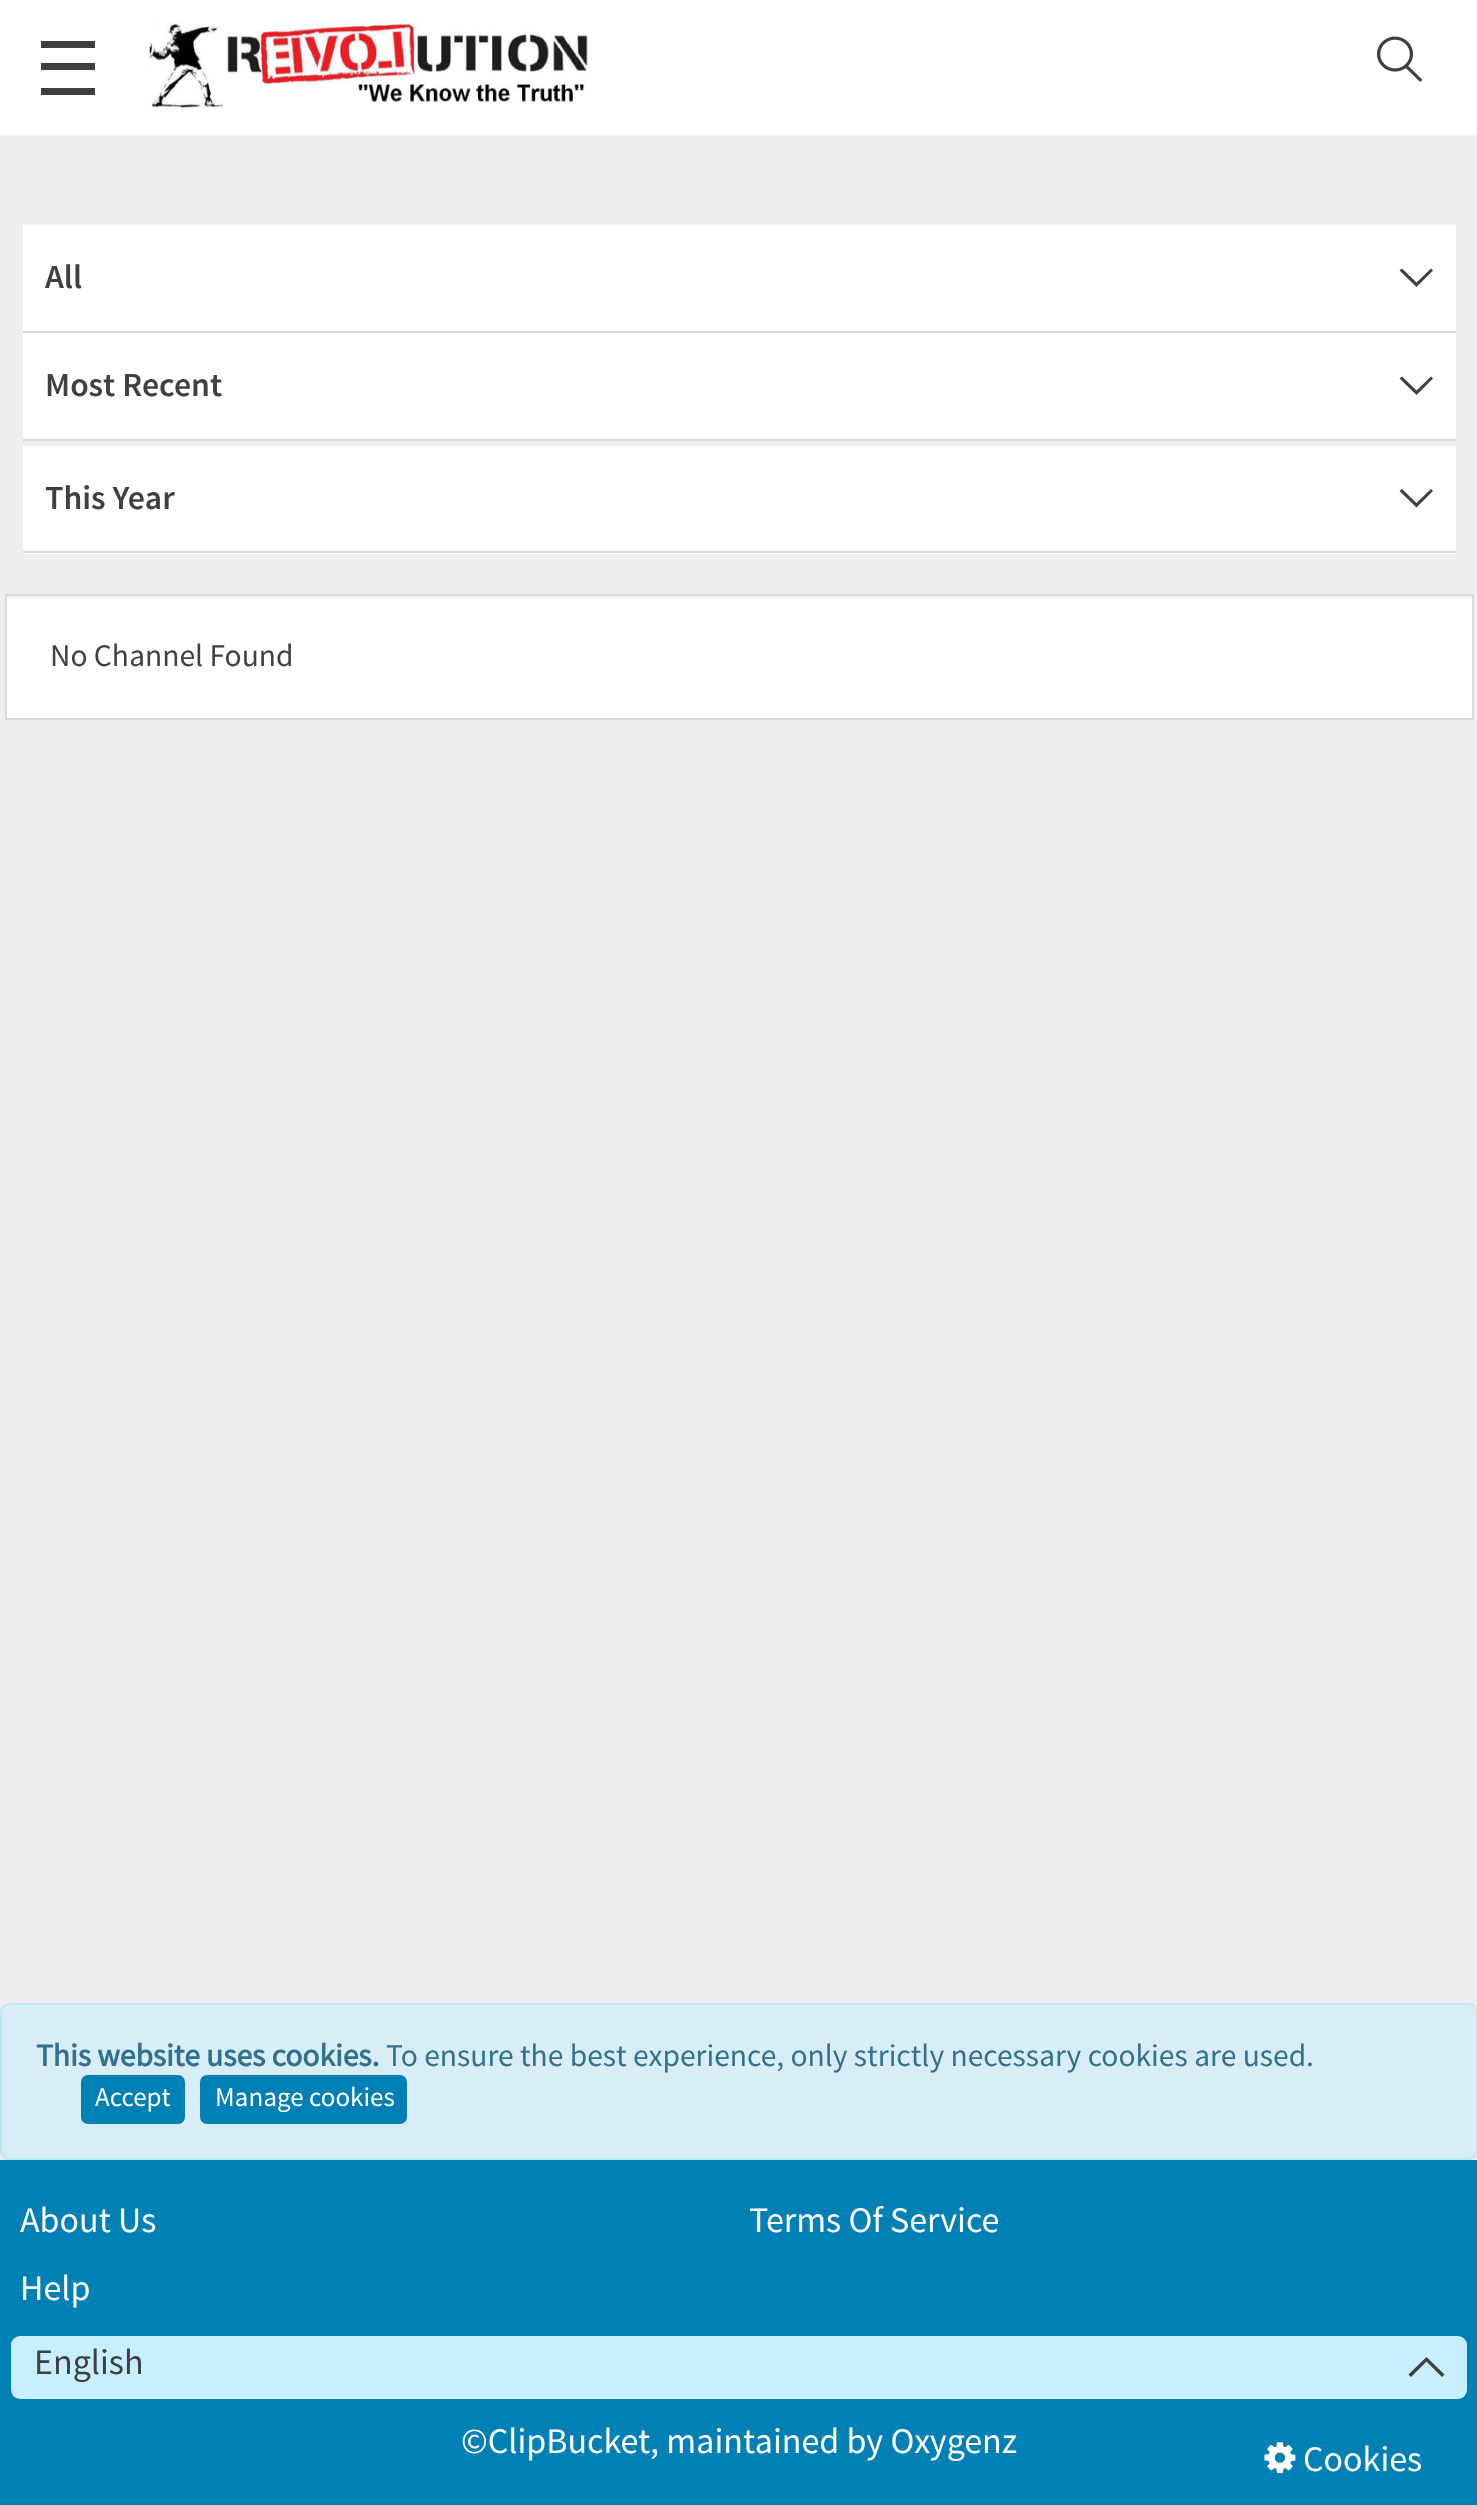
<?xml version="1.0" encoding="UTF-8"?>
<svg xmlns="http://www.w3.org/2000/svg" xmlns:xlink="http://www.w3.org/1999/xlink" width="1477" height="2505">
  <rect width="100%" height="100%" fill="#eeeeee" />
  <rect width="1477" height="135" fill="#ffffff" />
  <rect x="41" y="41" width="54" height="7" fill="#404040" />
  <rect x="41" y="63" width="54" height="7" fill="#404040" />
  <rect x="41" y="88" width="54" height="7" fill="#404040" />
  <image x="148" y="22" width="440" height="86" xlink:href="image1.png" />
  <image x="1377" y="36" width="45" height="46" xlink:href="image2.png" />
  <rect x="23" y="225" width="1433" height="106" fill="#ffffff" />
  <rect x="23" y="331" width="1433" height="2" fill="#d9d9d9" />
  <path d="M 1431 268.5 l -14.5 14 l -14.5 -14 l -2.5 2 l 17 16.5 l 16.5 -16.5 z" fill="#404040" />
  <rect x="23" y="333" width="1433" height="106" fill="#ffffff" />
  <rect x="23" y="439" width="1433" height="2" fill="#d9d9d9" />
  <path d="M 1431 376.5 l -14.5 14 l -14.5 -14 l -2.5 2 l 17 16.5 l 16.5 -16.5 z" fill="#404040" />
  <rect x="23" y="446" width="1433" height="108" fill="#ffffff" />
  <rect x="23" y="551" width="1433" height="2" fill="#d9d9d9" />
  <path d="M 1431 489 l -14.5 14 l -14.5 -14 l -2.5 2 l 17 16.5 l 16.5 -16.5 z" fill="#404040" />
  <rect x="7" y="598" width="1465" height="120" fill="#ffffff" />
  <rect x="7" y="596" width="1465" height="2" fill="#f2f2f2" />
  <rect x="6" y="595" width="1467" height="124" fill="none" stroke="#d9d9d9" stroke-width="2" />
  <rect x="1" y="2004" width="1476" height="155" rx="8" fill="#d9edf7" stroke="#bce8f1" stroke-width="2" />
  <rect x="82" y="2076" width="102" height="47" rx="6" fill="#0080b4" stroke="#0080b4" stroke-width="2" />
  <rect x="201" y="2076" width="205" height="47" rx="6" fill="#0080b4" stroke="#0080b4" stroke-width="2" />
  <rect y="2160" width="1477" height="345" fill="#0080b4" />
  <rect x="11" y="2336" width="1456" height="63" rx="9" fill="#c8efff" />
  <path d="M 1411 2377 l 15.5 -15.5 l 15.5 15.5 l 2.5 -2.5 l -18 -17.5 l -18 17.5 z" fill="#404040" />
  <image x="1264" y="2442" width="32" height="32" xlink:href="image3.png" />
  <text x="45" y="288" style="font-family: Source Sans Pro; font-size: 33.75px; font-weight: 600; fill: #404040">All</text>
  <text x="45" y="396" style="font-family: Source Sans Pro; font-size: 33.75px; font-weight: 600; fill: #404040">Most Recent</text>
  <text x="45" y="509" style="font-family: Source Sans Pro; font-size: 33.75px; font-weight: 600; fill: #404040">This Year</text>
  <text x="50" y="666" style="font-family: Source Sans Pro; font-size: 31.5px; fill: #404040">No Channel Found</text>
  <text x="36" y="2066" style="font-family: Source Sans Pro; font-size: 31.5px; font-weight: bold; fill: #31708f">This website uses cookies.</text>
  <text x="386" y="2066" style="font-family: Source Sans Pro; font-size: 31.5px; fill: #31708f">To ensure the best experience, only strictly necessary cookies are used.</text>
  <text x="95" y="2106" style="font-family: Source Sans Pro; font-size: 27px; fill: #ffffff">Accept</text>
  <text x="215" y="2106" style="font-family: Source Sans Pro; font-size: 27px; fill: #ffffff">Manage cookies</text>
  <text x="20" y="2232" style="font-family: Source Sans Pro; font-size: 36px; fill: #ffffff">About Us</text>
  <text x="749" y="2232" style="font-family: Source Sans Pro; font-size: 36px; fill: #ffffff">Terms Of Service</text>
  <text x="20" y="2300" style="font-family: Source Sans Pro; font-size: 36px; fill: #ffffff">Help</text>
  <text x="34" y="2374" style="font-family: Source Sans Pro; font-size: 36px; fill: #404040">English</text>
  <text x="461" y="2453" style="font-family: Source Sans Pro; font-size: 36px; fill: #ffffff">©ClipBucket</text>
  <text x="650" y="2453" style="font-family: Source Sans Pro; font-size: 36px; fill: #ffffff">, maintained by Oxygenz</text>
  <text x="1303" y="2471" style="font-family: Source Sans Pro; font-size: 36px; fill: #ffffff">Cookies</text>
</svg>
